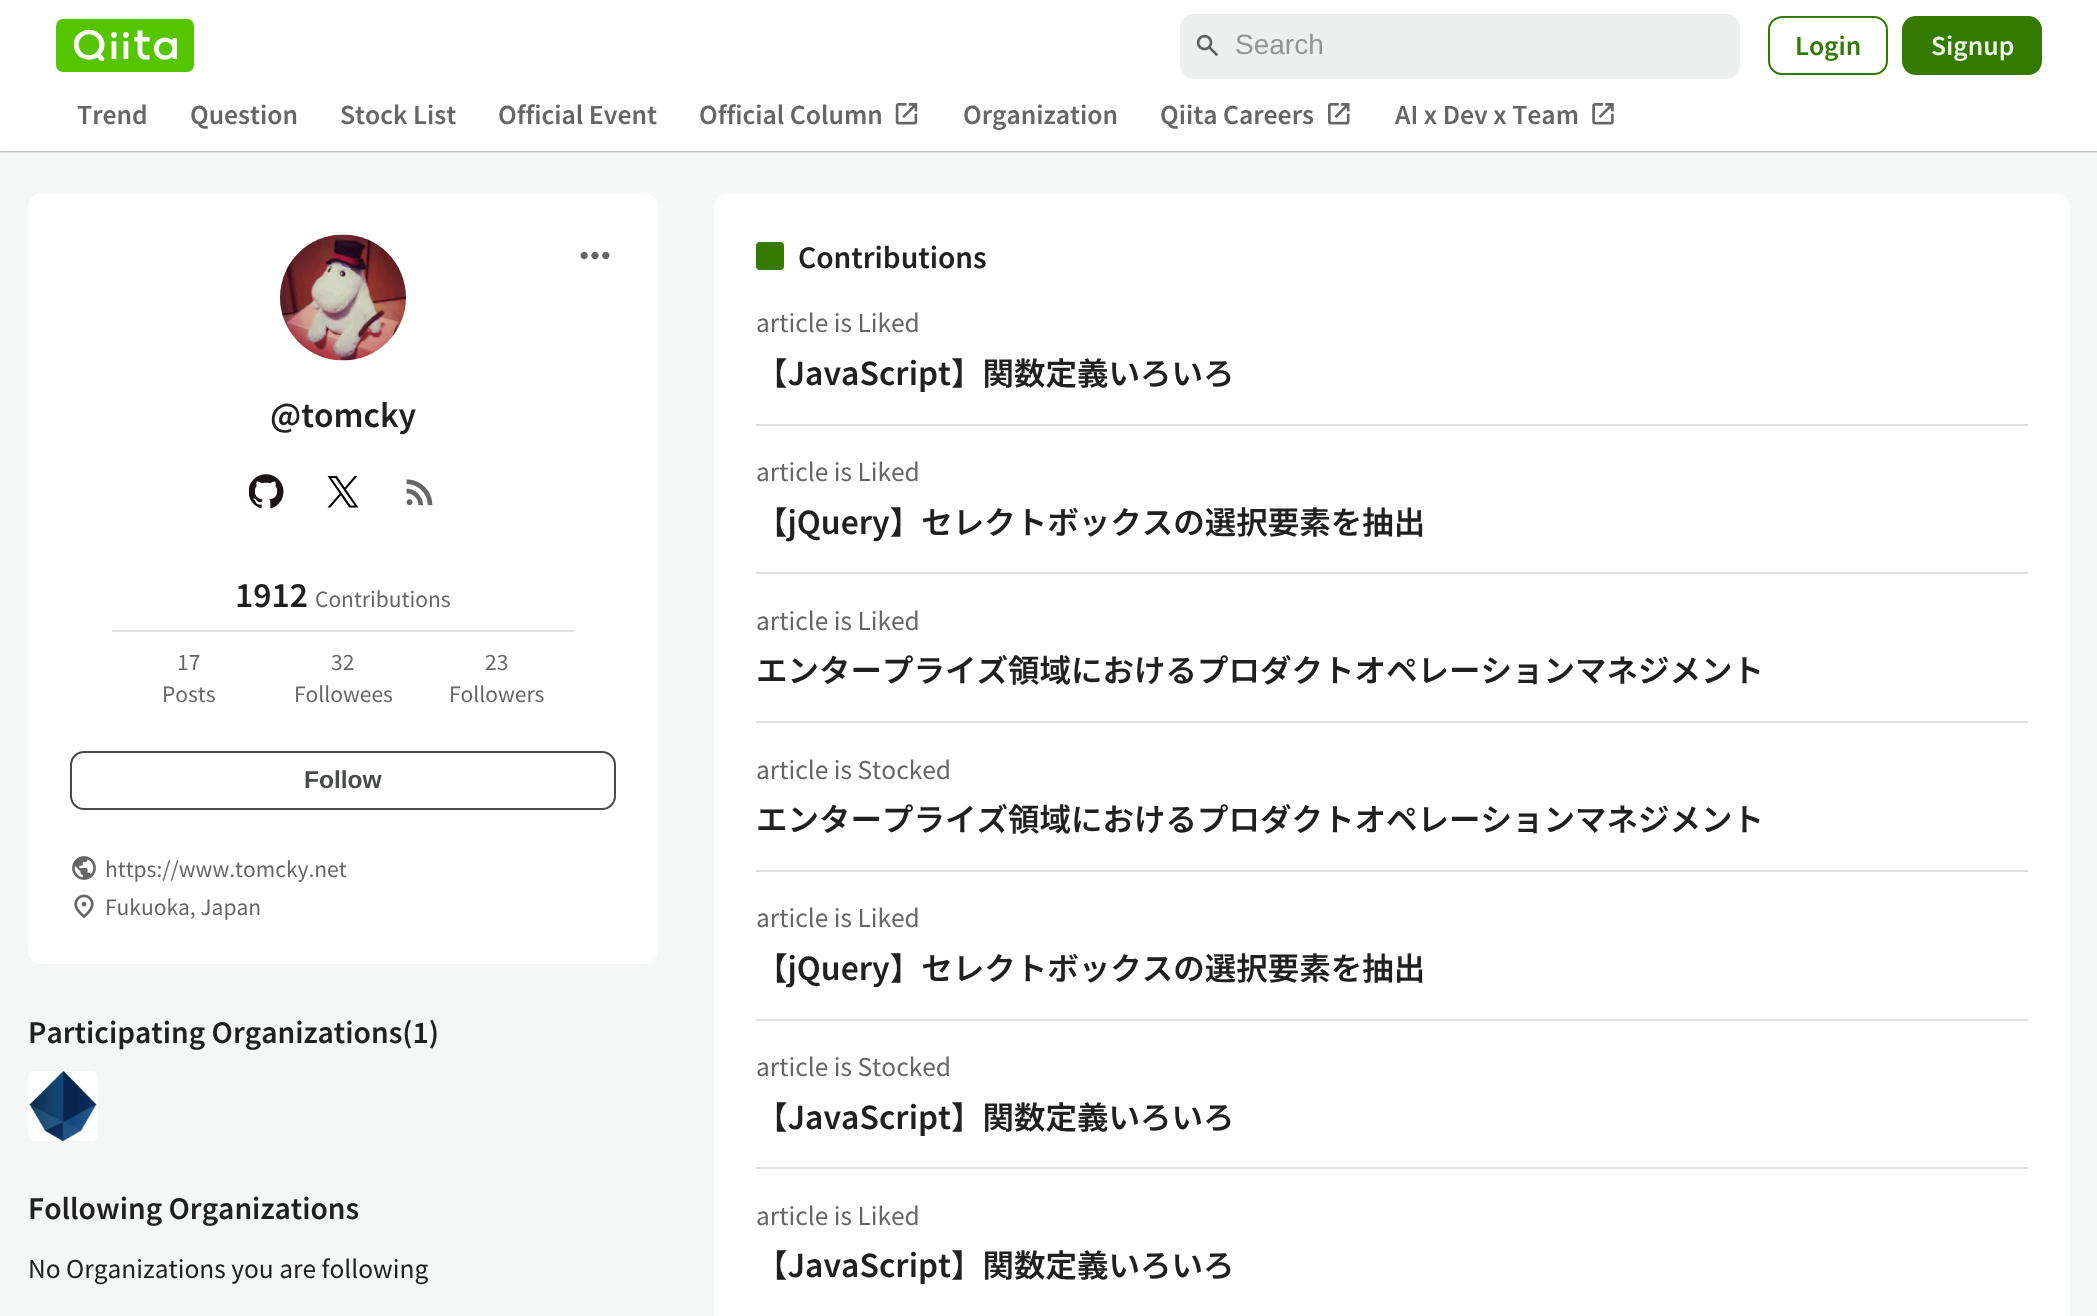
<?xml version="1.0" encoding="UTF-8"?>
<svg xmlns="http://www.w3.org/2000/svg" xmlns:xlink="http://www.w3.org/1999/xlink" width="2097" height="1316">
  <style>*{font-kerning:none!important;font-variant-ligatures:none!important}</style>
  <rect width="100%" height="100%" fill="#f5f6f6" />
  <rect x="-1" y="-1" width="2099" height="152" fill="none" stroke="#e1e2e2" stroke-width="2" />
  <rect y="2" width="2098" height="150" fill="#1e2121" fill-opacity="0.25" filter="blur(1px)" />
  <rect width="2097" height="151" fill="#ffffff" />
  <rect x="56" y="19" width="138" height="53" rx="7" fill="#55c500" />
  <image x="74" y="30" width="103" height="31" xlink:href="image1.png" />
  <rect x="1180" y="14" width="560" height="65" rx="14" fill="#edeeee" />
  <image x="1196" y="34" width="23" height="23" xlink:href="image2.png" />
  <rect x="1769" y="17" width="118" height="57" rx="13" fill="none" stroke="#357a00" stroke-width="2" />
  <rect x="1902" y="16" width="140" height="59" rx="14" fill="#357a00" />
  <image x="895" y="103" width="23" height="22" xlink:href="image3.png" />
  <image x="1328" y="103" width="22" height="22" xlink:href="image4.png" />
  <image x="1592" y="103" width="22" height="22" xlink:href="image5.png" />
  <rect x="28" y="193" width="630" height="771" rx="14" fill="#ffffff" />
  <image x="580" y="251" width="30" height="9" xlink:href="image6.png" />
  <image x="280" y="234" width="126" height="127" xlink:href="image7.png" />
  <image x="249" y="474" width="35" height="35" xlink:href="image8.png" />
  <image x="327" y="476" width="32" height="32" xlink:href="image9.png" />
  <image x="406" y="479" width="27" height="27" xlink:href="image10.png" />
  <rect x="112" y="630" width="462" height="2" fill="#e0e0e0" />
  <rect x="71" y="752" width="544" height="57" rx="13" fill="none" stroke="#494b4b" stroke-width="2" />
  <image x="72" y="856" width="24" height="24" xlink:href="image11.png" />
  <image x="74" y="894" width="20" height="25" xlink:href="image12.png" />
  <rect x="28" y="1071" width="70" height="70" rx="7" fill="#ffffff" />
  <image x="29" y="1071" width="68" height="70" xlink:href="image13.png" />
  <rect x="714" y="193" width="1356" height="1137" rx="14" fill="#ffffff" />
  <rect x="756" y="242" width="28" height="28" rx="4" fill="#357a00" />
  <rect x="756" y="424" width="1272" height="2" fill="#e0e0e0" />
  <rect x="756" y="572" width="1272" height="2" fill="#e0e0e0" />
  <rect x="756" y="721" width="1272" height="2" fill="#e0e0e0" />
  <rect x="756" y="870" width="1272" height="2" fill="#e0e0e0" />
  <rect x="756" y="1019" width="1272" height="2" fill="#e0e0e0" />
  <rect x="756" y="1167" width="1272" height="2" fill="#e0e0e0" />
  <text x="1235" y="54" style="font-family: Liberation Sans; font-size: 28px; fill: #939494">Search</text>
  <text x="1795" y="55" style="font-family: Noto Sans JP; font-size: 24.5px; font-weight: 600; fill: #357a00">Login</text>
  <text x="1931" y="55" style="font-family: Noto Sans JP; font-size: 24.5px; font-weight: 600; fill: #eff4eb">Signup</text>
  <text x="77" y="124" style="font-family: Noto Sans JP; font-size: 24.5px; font-weight: 600; fill: #666666">Trend</text>
  <text x="190" y="124" style="font-family: Noto Sans JP; font-size: 24.5px; font-weight: 600; fill: #666666">Question</text>
  <text x="340" y="124" style="font-family: Noto Sans JP; font-size: 24.5px; font-weight: 600; fill: #666666">Stock List</text>
  <text x="498" y="124" style="font-family: Noto Sans JP; font-size: 24.5px; font-weight: 600; fill: #666666">Official Event</text>
  <text x="699" y="124" style="font-family: Noto Sans JP; font-size: 24.5px; font-weight: 600; fill: #666666">Official Column</text>
  <text x="963" y="124" style="font-family: Noto Sans JP; font-size: 24.5px; font-weight: 600; fill: #666666">Organization</text>
  <text x="1160" y="124" style="font-family: Noto Sans JP; font-size: 24.5px; font-weight: 600; fill: #666666">Qiita Careers</text>
  <text x="1395" y="124" style="font-family: Noto Sans JP; font-size: 24.5px; font-weight: 600; fill: #666666">AI x Dev x Team</text>
  <text x="270" y="427" style="font-family: Noto Sans JP; font-size: 31.5px; font-weight: 600; fill: #202020">@tomcky</text>
  <text x="235" y="607" style="font-family: Noto Sans JP; font-size: 31.5px; font-weight: 600; fill: #202020">1912</text>
  <text x="315" y="607" style="font-family: Noto Sans JP; font-size: 21px; fill: #666666">Contributions</text>
  <text x="177" y="670" style="font-family: Noto Sans JP; font-size: 21px; fill: #666666">17</text>
  <text x="162" y="702" style="font-family: Noto Sans JP; font-size: 21px; fill: #666666">Posts</text>
  <text x="331" y="670" style="font-family: Noto Sans JP; font-size: 21px; fill: #666666">32</text>
  <text x="294" y="702" style="font-family: Noto Sans JP; font-size: 21px; fill: #666666">Followees</text>
  <text x="485" y="670" style="font-family: Noto Sans JP; font-size: 21px; fill: #666666">23</text>
  <text x="449" y="702" style="font-family: Noto Sans JP; font-size: 21px; fill: #666666">Followers</text>
  <text x="304" y="788" style="font-family: Liberation Sans; font-size: 24.5px; font-weight: bold; fill: #494b4b">Follow</text>
  <text x="105" y="877" style="font-family: Noto Sans JP; font-size: 21px; fill: #666666">https://www.tomcky.net</text>
  <text x="105" y="915" style="font-family: Noto Sans JP; font-size: 21px; fill: #666666">Fukuoka, Japan</text>
  <text x="28" y="1043" style="font-family: Noto Sans JP; font-size: 28px; font-weight: 600; fill: #202020">Participating Organizations(1)</text>
  <text x="28" y="1219" style="font-family: Noto Sans JP; font-size: 28px; font-weight: 600; fill: #202020">Following Organizations</text>
  <text x="28" y="1278" style="font-family: Noto Sans JP; font-size: 24.5px; fill: #202020">No Organizations you are following</text>
  <text x="798" y="268" style="font-family: Noto Sans JP; font-size: 28px; font-weight: 600; fill: #202020">Contributions</text>
  <text x="756" y="332" style="font-family: Noto Sans JP; font-size: 24.5px; fill: #666666">article is Liked</text>
  <text x="756" y="385" style="font-family: Noto Sans JP; font-size: 31.5px; font-weight: 600; fill: #202020">【JavaScript】関数定義いろいろ</text>
  <text x="756" y="481" style="font-family: Noto Sans JP; font-size: 24.5px; fill: #666666">article is Liked</text>
  <text x="756" y="534" style="font-family: Noto Sans JP; font-size: 31.5px; font-weight: 600; fill: #202020">【jQuery】セレクトボックスの選択要素を抽出</text>
  <text x="756" y="630" style="font-family: Noto Sans JP; font-size: 24.5px; fill: #666666">article is Liked</text>
  <text x="756" y="682" style="font-family: Noto Sans JP; font-size: 31.5px; font-weight: 600; fill: #202020">エンタープライズ領域におけるプロダクトオペレーションマネジメント</text>
  <text x="756" y="779" style="font-family: Noto Sans JP; font-size: 24.5px; fill: #666666">article is Stocked</text>
  <text x="756" y="831" style="font-family: Noto Sans JP; font-size: 31.5px; font-weight: 600; fill: #202020">エンタープライズ領域におけるプロダクトオペレーションマネジメント</text>
  <text x="756" y="927" style="font-family: Noto Sans JP; font-size: 24.5px; fill: #666666">article is Liked</text>
  <text x="756" y="980" style="font-family: Noto Sans JP; font-size: 31.5px; font-weight: 600; fill: #202020">【jQuery】セレクトボックスの選択要素を抽出</text>
  <text x="756" y="1076" style="font-family: Noto Sans JP; font-size: 24.5px; fill: #666666">article is Stocked</text>
  <text x="756" y="1129" style="font-family: Noto Sans JP; font-size: 31.5px; font-weight: 600; fill: #202020">【JavaScript】関数定義いろいろ</text>
  <text x="756" y="1225" style="font-family: Noto Sans JP; font-size: 24.5px; fill: #666666">article is Liked</text>
  <text x="756" y="1277" style="font-family: Noto Sans JP; font-size: 31.5px; font-weight: 600; fill: #202020">【JavaScript】関数定義いろいろ</text>
</svg>
